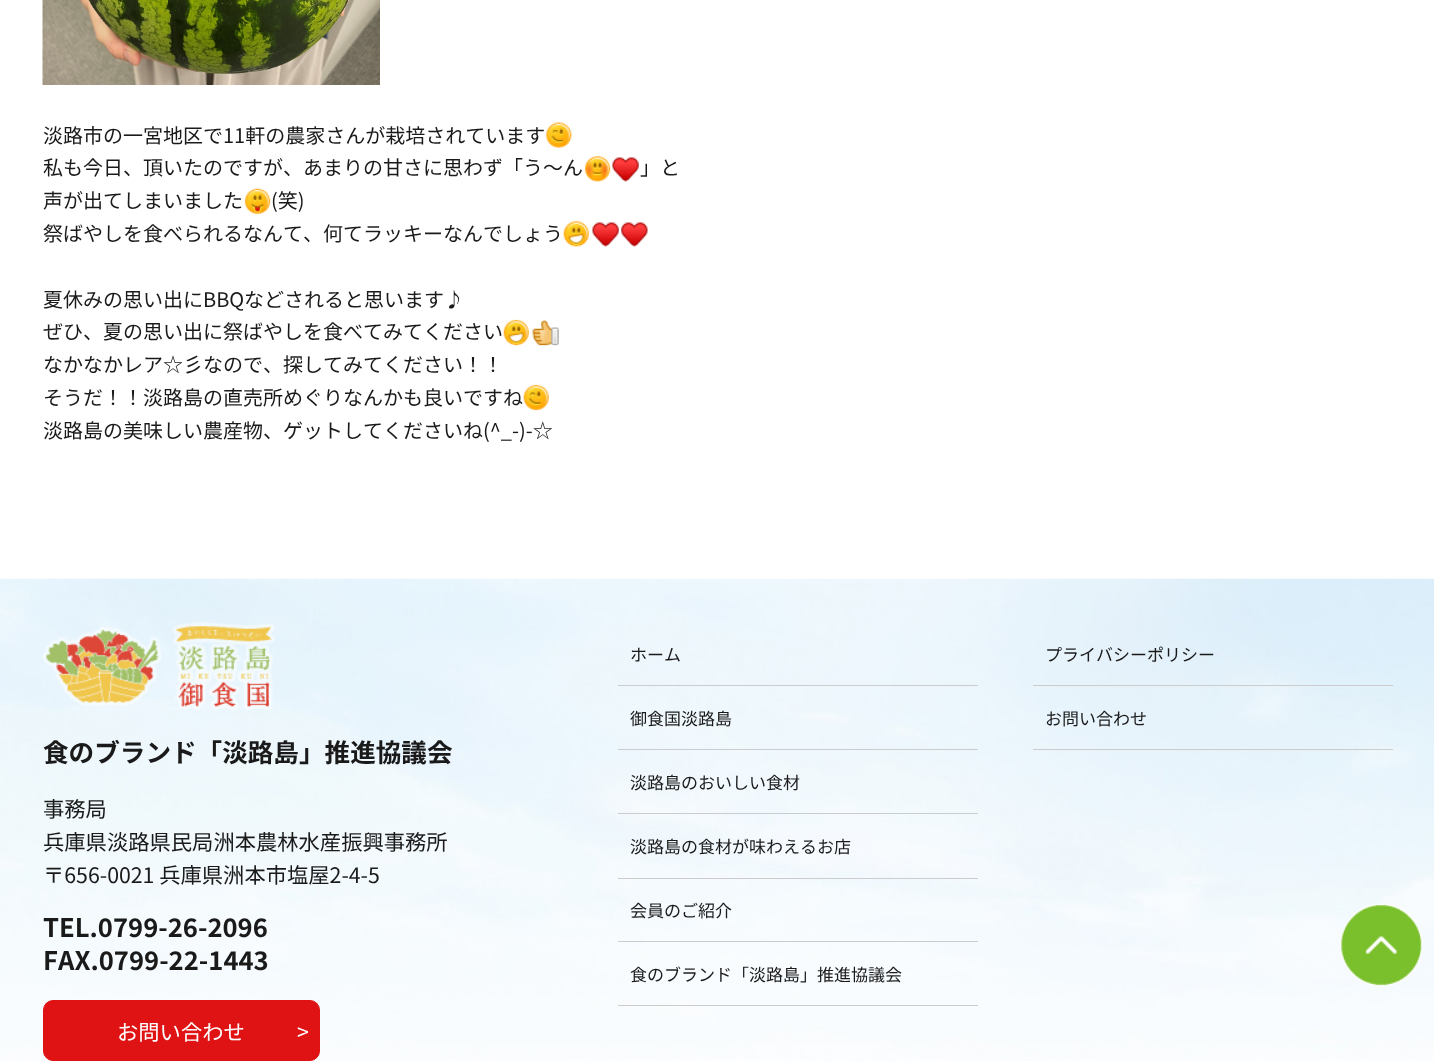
<?xml version="1.0" encoding="UTF-8"?>
<svg xmlns="http://www.w3.org/2000/svg" xmlns:xlink="http://www.w3.org/1999/xlink" width="1434" height="1061">
  <style>*{font-kerning:none!important;font-variant-ligatures:none!important}</style>
  <rect width="100%" height="100%" fill="#ffffff" />
  <image x="42" y="0" width="338" height="85" xlink:href="image1.png" />
  <image x="546" y="122" width="26" height="26" xlink:href="image2.png" />
  <image x="584" y="156" width="27" height="26" xlink:href="image3.png" />
  <image x="612" y="157" width="27" height="25" xlink:href="image4.png" />
  <image x="244" y="188" width="27" height="26" xlink:href="image5.png" />
  <image x="563" y="221" width="26" height="26" xlink:href="image6.png" />
  <image x="592" y="222" width="27" height="25" xlink:href="image4.png" />
  <image x="621" y="222" width="27" height="25" xlink:href="image7.png" />
  <image x="503" y="319" width="26" height="27" xlink:href="image8.png" />
  <image x="532" y="319" width="27" height="27" xlink:href="image9.png" />
  <image x="523" y="384" width="26" height="27" xlink:href="image10.png" />
  <image x="0" y="578" width="1434" height="483" xlink:href="image11.png" />
  <image x="42" y="622" width="233" height="88" xlink:href="image12.png" />
  <rect x="43.5" y="1000.5" width="276" height="60" rx="9.5" fill="#df1314" stroke="#df1314" />
  <rect x="618" y="685" width="360" height="1" fill="#cccccc" />
  <rect x="618" y="749" width="360" height="1" fill="#cccccc" />
  <rect x="618" y="813" width="360" height="1" fill="#cccccc" />
  <rect x="618" y="878" width="360" height="1" fill="#cccccc" />
  <rect x="618" y="941" width="360" height="1" fill="#cccccc" />
  <rect x="618" y="1005" width="360" height="1" fill="#cccccc" />
  <rect x="1033" y="685" width="360" height="1" fill="#cccccc" />
  <rect x="1033" y="749" width="360" height="1" fill="#cccccc" />
  <image x="1340" y="904" width="83" height="82" xlink:href="image13.png" />
  <text x="43" y="143" style="font-family: Noto Sans JP; font-size: 20px; fill: #1a1a1a">淡路市の一宮地区で11軒の農家さんが栽培されています</text>
  <text x="43" y="175" style="font-family: Noto Sans JP; font-size: 20px; fill: #1a1a1a">私も今日、頂いたのですが、あまりの甘さに思わず「う～ん</text>
  <text x="640" y="175" style="font-family: Noto Sans JP; font-size: 20px; fill: #1a1a1a">」と</text>
  <text x="43" y="208" style="font-family: Noto Sans JP; font-size: 20px; fill: #1a1a1a">声が出てしまいました</text>
  <text x="271" y="208" style="font-family: Noto Sans JP; font-size: 20px; fill: #1a1a1a">(笑)</text>
  <text x="43" y="241" style="font-family: Noto Sans JP; font-size: 20px; fill: #1a1a1a">祭ばやしを食べられるなんて、何てラッキーなんでしょう</text>
  <text x="43" y="307" style="font-family: Noto Sans JP; font-size: 20px; fill: #1a1a1a">夏休みの思い出にBBQなどされると思います♪</text>
  <text x="43" y="339" style="font-family: Noto Sans JP; font-size: 20px; fill: #1a1a1a">ぜひ、夏の思い出に祭ばやしを食べてみてください</text>
  <text x="43" y="372" style="font-family: Noto Sans JP; font-size: 20px; fill: #1a1a1a">なかなかレア☆彡なので、探してみてください！！</text>
  <text x="43" y="405" style="font-family: Noto Sans JP; font-size: 20px; fill: #1a1a1a">そうだ！！淡路島の直売所めぐりなんかも良いですね</text>
  <text x="43" y="438" style="font-family: Noto Sans JP; font-size: 20px; fill: #1a1a1a">淡路島の美味しい農産物、ゲットしてくださいね(^_-)-☆</text>
  <text x="43" y="762" style="font-family: Noto Sans JP; font-size: 25.6px; font-weight: bold; fill: #1a1a1a">食のブランド「淡路島」推進協議会</text>
  <text x="43" y="817" style="font-family: Noto Sans JP; font-size: 21.3px; fill: #1a1a1a">事務局</text>
  <text x="43" y="850" style="font-family: Noto Sans JP; font-size: 21.3px; fill: #1a1a1a">兵庫県淡路県民局洲本農林水産振興事務所</text>
  <text x="43" y="883" style="font-family: Noto Sans JP; font-size: 21.3px; fill: #1a1a1a">〒656-0021 兵庫県洲本市塩屋2-4-5</text>
  <text x="43" y="937" style="font-family: Noto Sans JP; font-size: 25.6px; font-weight: bold; fill: #1a1a1a">TEL.0799-26-2096</text>
  <text x="43" y="970" style="font-family: Noto Sans JP; font-size: 25.6px; font-weight: bold; fill: #1a1a1a">FAX.0799-22-1443</text>
  <text x="117" y="1040" style="font-family: Noto Sans JP; font-size: 21.3px; fill: #ffffff">お問い合わせ</text>
  <text x="297" y="1040" style="font-family: Noto Sans JP; font-size: 21.3px; letter-spacing: -6px; fill: #ffffff">&gt;</text>
  <text x="630" y="661" style="font-family: Noto Sans JP; font-size: 17px; fill: #1a1a1a">ホーム</text>
  <text x="630" y="725" style="font-family: Noto Sans JP; font-size: 17px; fill: #1a1a1a">御食国淡路島</text>
  <text x="630" y="789" style="font-family: Noto Sans JP; font-size: 17px; fill: #1a1a1a">淡路島のおいしい食材</text>
  <text x="630" y="853" style="font-family: Noto Sans JP; font-size: 17px; fill: #1a1a1a">淡路島の食材が味わえるお店</text>
  <text x="630" y="917" style="font-family: Noto Sans JP; font-size: 17px; fill: #1a1a1a">会員のご紹介</text>
  <text x="630" y="981" style="font-family: Noto Sans JP; font-size: 17px; fill: #1a1a1a">食のブランド「淡路島」推進協議会</text>
  <text x="1045" y="661" style="font-family: Noto Sans JP; font-size: 17px; fill: #1a1a1a">プライバシーポリシー</text>
  <text x="1045" y="725" style="font-family: Noto Sans JP; font-size: 17px; fill: #1a1a1a">お問い合わせ</text>
</svg>
